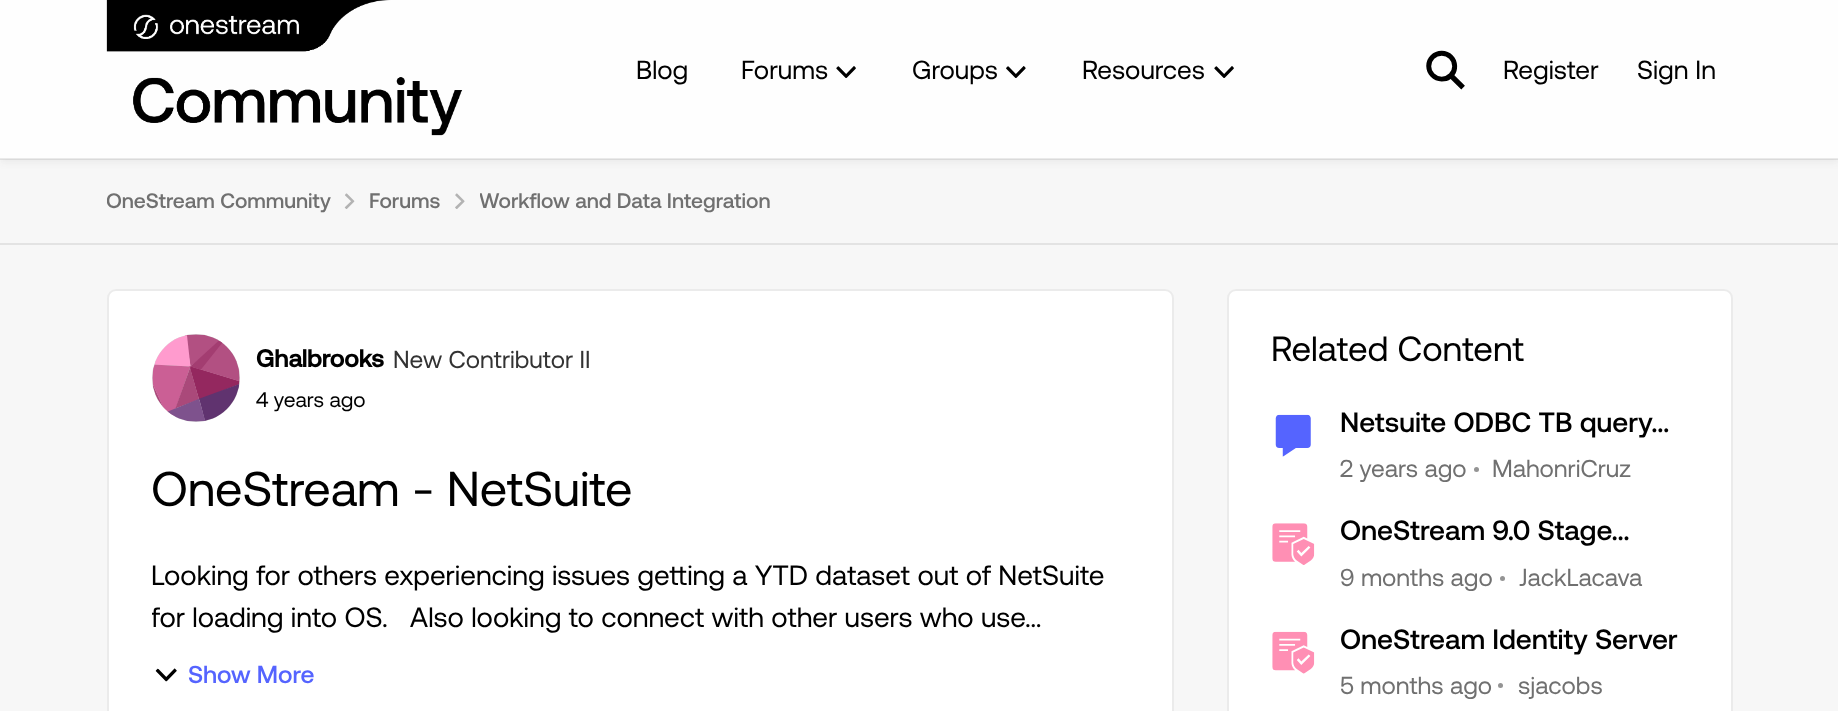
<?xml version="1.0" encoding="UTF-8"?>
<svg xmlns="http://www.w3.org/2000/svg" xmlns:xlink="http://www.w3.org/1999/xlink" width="1838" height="711">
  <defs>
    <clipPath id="clip1"><rect x="107" y="177" width="224" height="49" /></clipPath>
    <clipPath id="clip2"><rect x="480" y="177" width="290" height="49" /></clipPath>
    <clipPath id="clip3"><rect x="152" y="555" width="977" height="84" /></clipPath>
    <clipPath id="clip4"><rect x="1341" y="515" width="346" height="36" /></clipPath>
    <clipPath id="clip5"><rect x="1341" y="623" width="346" height="35" /></clipPath>
  </defs>
  <rect width="100%" height="100%" fill="#f7f7f7" />
  <rect y="4" width="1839" height="159" fill="#333333" fill-opacity="0.06" filter="blur(3.5px)" />
  <rect width="1838" height="159" fill="#fefefe" />
  <rect y="158" width="1838" height="2" fill="#000000" fill-opacity="0.08" />
  <image x="106" y="0" width="357" height="136" xlink:href="image1.png" />
  <image x="836" y="66" width="20" height="12" xlink:href="image2.png" />
  <image x="1006" y="66" width="20" height="12" xlink:href="image3.png" />
  <image x="1214" y="66" width="20" height="12" xlink:href="image2.png" />
  <image x="1426" y="50" width="39" height="40" xlink:href="image4.png" />
  <rect y="243" width="1838" height="2" fill="#e3e3e3" />
  <image x="344" y="193" width="11" height="16" xlink:href="image5.png" />
  <image x="455" y="193" width="10" height="16" xlink:href="image6.png" />
  <rect x="107" y="289" width="1067" height="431" rx="9" fill="#ffffff" />
  <rect x="108" y="290" width="1065" height="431" rx="8" fill="none" stroke="#000000" stroke-opacity="0.08" stroke-width="2" />
  <circle cx="196" cy="378" r="44" fill="#d9d9d9" />
  <image x="152" y="334" width="88" height="88" xlink:href="image7.png" />
  <image x="155" y="668" width="22" height="14" xlink:href="image8.png" />
  <rect x="1227" y="289" width="506" height="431" rx="9" fill="#ffffff" />
  <rect x="1228" y="290" width="504" height="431" rx="8" fill="none" stroke="#000000" stroke-opacity="0.08" stroke-width="2" />
  <image x="1275" y="414" width="36" height="43" xlink:href="image9.png" />
  <circle cx="1476.5" cy="469.5" r="2.5" fill="#949494" />
  <image x="1272" y="523" width="43" height="42" xlink:href="image10.png" />
  <circle cx="1502.5" cy="578.5" r="2.5" fill="#949494" />
  <image x="1272" y="631" width="43" height="43" xlink:href="image11.png" />
  <circle cx="1500.5" cy="685.5" r="2.5" fill="#949494" />
  <text x="636" y="79" style="font-family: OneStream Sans; font-size: 26.25px; fill: #000000">Blog</text>
  <text x="741" y="79" style="font-family: OneStream Sans; font-size: 26.25px; fill: #000000">Forums</text>
  <text x="912" y="79" style="font-family: OneStream Sans; font-size: 26.25px; fill: #000000">Groups</text>
  <text x="1082" y="79" style="font-family: OneStream Sans; font-size: 26.25px; fill: #000000">Resources</text>
  <text x="1503" y="79" style="font-family: OneStream Sans; font-size: 26.25px; fill: #000000">Register</text>
  <text x="1637" y="79" style="font-family: OneStream Sans; font-size: 26.25px; fill: #000000">Sign In</text>
  <g clip-path="url(#clip1)">
    <text x="106" y="208" style="font-family: OneStream Sans; font-size: 21px; font-weight: 500; fill: #707070">OneStream Community</text>
  </g>
  <text x="369" y="208" style="font-family: OneStream Sans; font-size: 21px; font-weight: 500; fill: #707070">Forums</text>
  <g clip-path="url(#clip2)">
    <text x="479" y="208" style="font-family: OneStream Sans; font-size: 21px; font-weight: 500; fill: #707070">Workflow and Data Integration</text>
  </g>
  <text x="256" y="367" style="font-family: OneStream Sans; font-size: 24.5px; font-weight: bold; fill: #000000">Ghalbrooks</text>
  <text x="393" y="368" style="font-family: OneStream Sans; font-size: 24.5px; fill: #333333">New Contributor II</text>
  <text x="256" y="407" style="font-family: OneStream Sans; font-size: 21px; fill: #000000">4 years ago</text>
  <text x="151" y="506" style="font-family: OneStream Sans; font-size: 49px; fill: #000000">OneStream - NetSuite</text>
  <text x="151" y="585" style="font-family: OneStream Sans; font-size: 28px; fill: #000000">Looking for others experiencing issues getting a YTD dataset out of NetSuite</text>
  <g clip-path="url(#clip3)">
    <text x="151" y="627" style="font-family: OneStream Sans; font-size: 28px; fill: #000000" xml:space="preserve">for loading into OS.   Also looking to connect with other users who use…</text>
  </g>
  <text x="188" y="683" style="font-family: OneStream Sans; font-size: 24.5px; font-weight: 500; fill: #5564ff">Show More</text>
  <text x="1271" y="361" style="font-family: OneStream Sans; font-size: 35px; fill: #000000">Related Content</text>
  <text x="1340" y="432" style="font-family: OneStream Sans; font-size: 28px; font-weight: 500; fill: #000000">Netsuite ODBC TB query…</text>
  <text x="1340" y="477" style="font-family: OneStream Sans; font-size: 24.5px; fill: #707070">2 years ago</text>
  <text x="1492" y="477" style="font-family: OneStream Sans; font-size: 24.5px; fill: #707070">MahonriCruz</text>
  <g clip-path="url(#clip4)">
    <text x="1340" y="540" style="font-family: OneStream Sans; font-size: 28px; font-weight: 500; fill: #000000">OneStream 9.0 Stage…</text>
  </g>
  <text x="1340" y="586" style="font-family: OneStream Sans; font-size: 24.5px; fill: #707070">9 months ago</text>
  <text x="1519" y="586" style="font-family: OneStream Sans; font-size: 24.5px; fill: #707070">JackLacava</text>
  <g clip-path="url(#clip5)">
    <text x="1340" y="649" style="font-family: OneStream Sans; font-size: 28px; font-weight: 500; fill: #000000">OneStream Identity Server</text>
  </g>
  <text x="1340" y="694" style="font-family: OneStream Sans; font-size: 24.5px; fill: #707070">5 months ago</text>
  <text x="1518" y="694" style="font-family: OneStream Sans; font-size: 24.5px; fill: #707070">sjacobs</text>
</svg>
